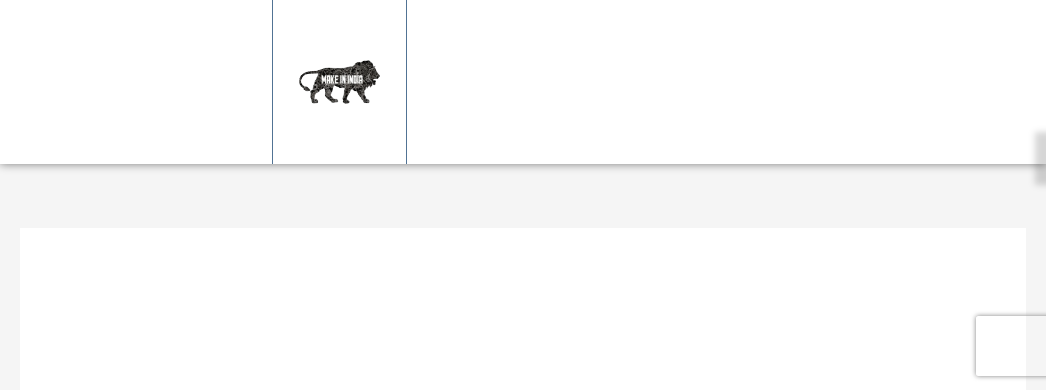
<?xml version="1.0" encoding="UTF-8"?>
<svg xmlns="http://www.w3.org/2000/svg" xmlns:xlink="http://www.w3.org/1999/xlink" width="1046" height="390">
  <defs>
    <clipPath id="clip1"><path d="M 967 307 h 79 v 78 h -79 z m 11 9 h 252 c 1 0 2 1 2 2 v 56 c 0 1 -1 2 -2 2 h -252 c -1 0 -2 -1 -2 -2 v -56 c 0 -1 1 -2 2 -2 z" clip-rule="evenodd" /></clipPath>
  </defs>
  <rect width="100%" height="100%" fill="#f5f5f5" />
  <rect width="1046" height="164" fill="#000000" fill-opacity="0.5" filter="blur(5px)" />
  <rect width="1046" height="164" fill="#ffffff" />
  <rect x="406" width="1" height="164" fill="#517394" />
  <rect x="272" width="1" height="164" fill="#517394" />
  <image x="299" y="60" width="81" height="44" xlink:href="image1.png" />
  <rect x="20" y="228" width="1006" height="162" fill="#ffffff" />
  <rect x="1035" y="132" width="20" height="53" fill="#000000" fill-opacity="0.16" filter="blur(3px)" />
  <g clip-path="url(#clip1)">
    <rect x="976" y="316" width="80" height="60" rx="2" fill="#808080" filter="blur(2.5px)" />
  </g>
</svg>
